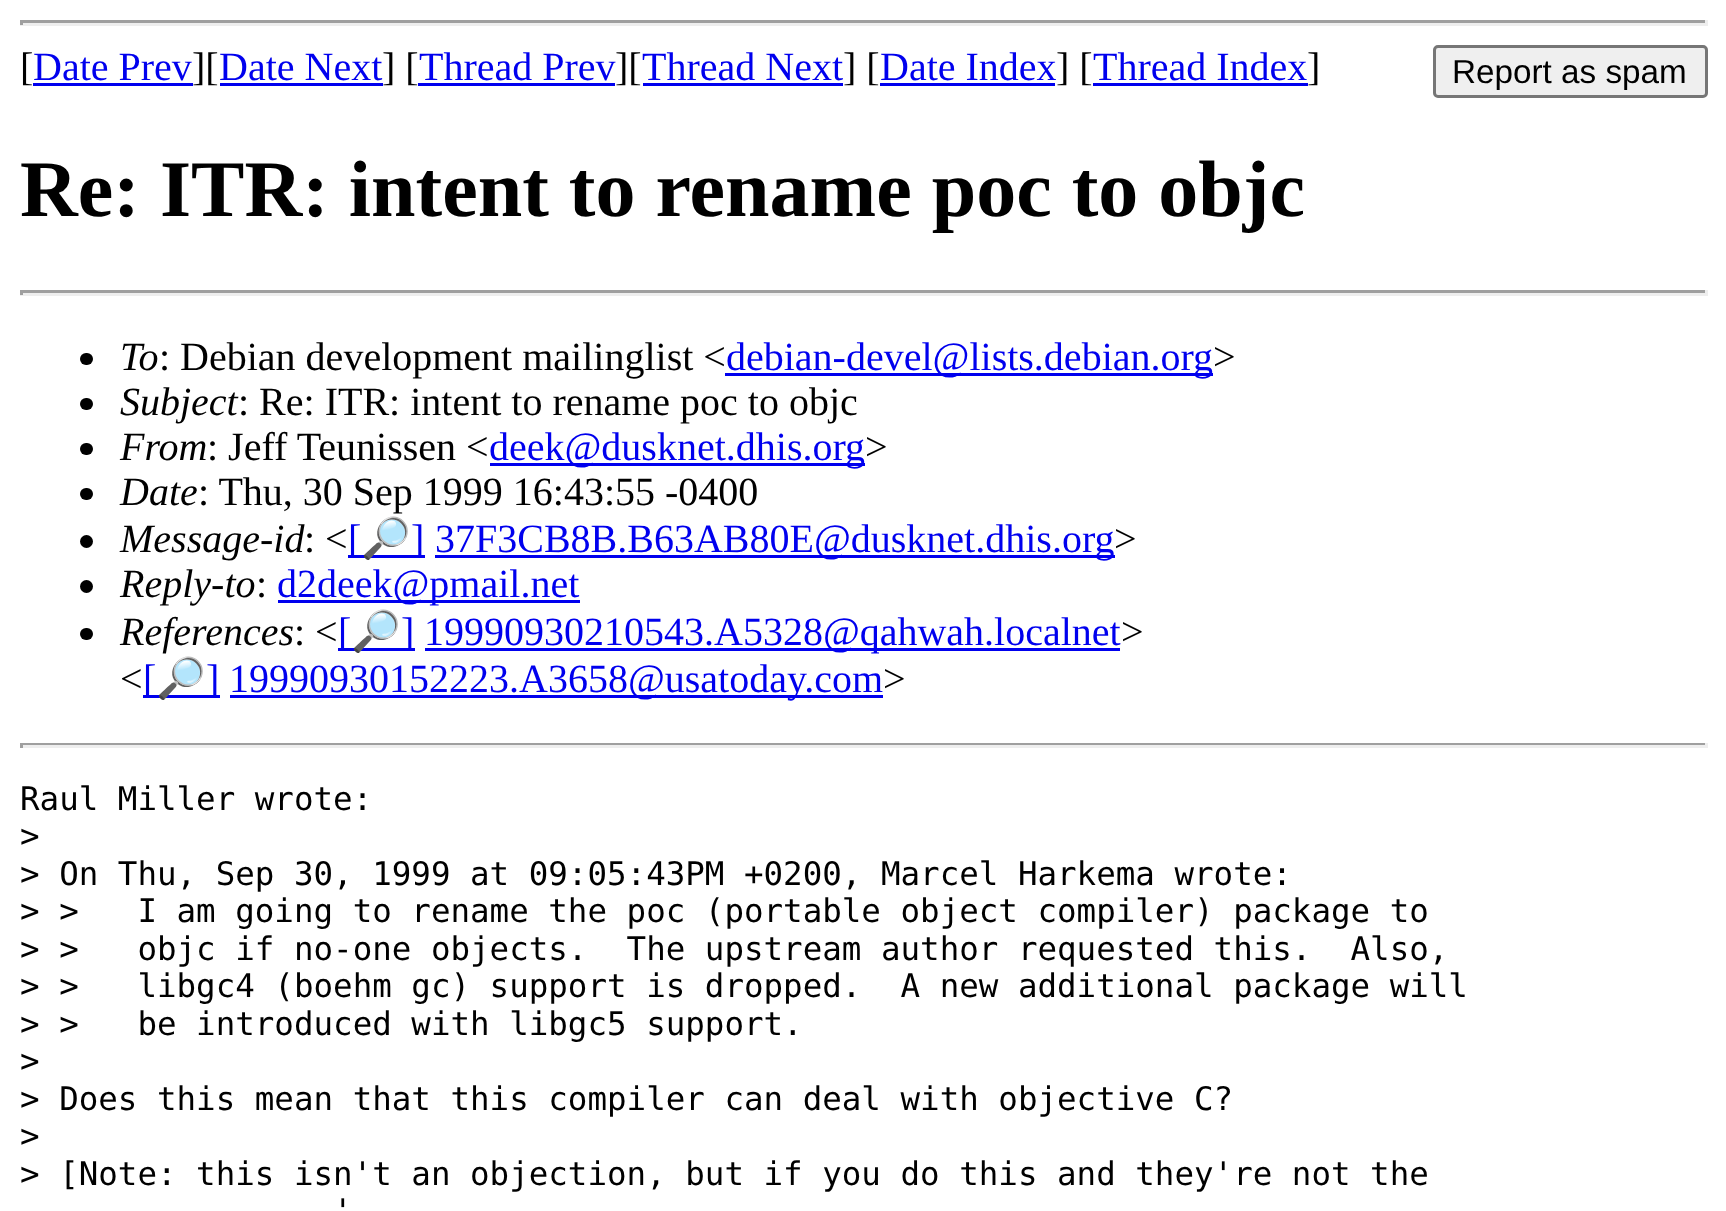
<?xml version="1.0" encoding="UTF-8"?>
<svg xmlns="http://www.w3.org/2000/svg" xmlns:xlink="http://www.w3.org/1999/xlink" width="1726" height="1211">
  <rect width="100%" height="100%" fill="#ffffff" />
  <rect x="20" y="20" width="1688" height="3" fill="#9f9f9f" />
  <rect x="1705" y="20" width="3" height="5" fill="#eeeeee" />
  <rect x="20" y="23" width="1688" height="3" fill="#eeeeee" />
  <rect x="20" y="20" width="3" height="5" fill="#9f9f9f" />
  <rect x="33" y="83" width="160" height="3" fill="#0000ee" />
  <rect x="220" y="83" width="163" height="3" fill="#0000ee" />
  <rect x="418" y="83" width="197" height="3" fill="#0000ee" />
  <rect x="643" y="83" width="200" height="3" fill="#0000ee" />
  <rect x="880" y="83" width="175" height="3" fill="#0000ee" />
  <rect x="1093" y="83" width="215" height="3" fill="#0000ee" />
  <rect x="1434.5" y="46.5" width="272" height="50" rx="3.5" fill="#efefef" stroke="#767676" stroke-width="3" />
  <rect x="20" y="290" width="1688" height="3" fill="#9f9f9f" />
  <rect x="1705" y="290" width="3" height="5" fill="#eeeeee" />
  <rect x="20" y="293" width="1688" height="3" fill="#eeeeee" />
  <rect x="20" y="290" width="3" height="5" fill="#9f9f9f" />
  <rect x="80" y="353" width="13" height="12" rx="6" fill="#000000" />
  <rect x="725" y="373" width="488" height="3" fill="#0000ee" />
  <rect x="80" y="398" width="13" height="12" rx="6" fill="#000000" />
  <rect x="80" y="443" width="13" height="12" rx="6" fill="#000000" />
  <rect x="490" y="463" width="375" height="3" fill="#0000ee" />
  <rect x="80" y="488" width="13" height="12" rx="6" fill="#000000" />
  <circle cx="86.5" cy="541.5" r="6.5" fill="#000000" />
  <rect x="348" y="555" width="77" height="3" fill="#0000ee" />
  <rect x="435" y="555" width="680" height="3" fill="#0000ee" />
  <circle cx="86.5" cy="586.5" r="6.5" fill="#000000" />
  <rect x="278" y="600" width="302" height="3" fill="#0000ee" />
  <rect x="80" y="628" width="13" height="12" rx="6" fill="#000000" />
  <rect x="338" y="648" width="77" height="3" fill="#0000ee" />
  <rect x="425" y="648" width="695" height="3" fill="#0000ee" />
  <rect x="143" y="695" width="77" height="3" fill="#0000ee" />
  <rect x="230" y="695" width="653" height="3" fill="#0000ee" />
  <rect x="20" y="743" width="1688" height="2" fill="#9f9f9f" />
  <rect x="1705" y="743" width="3" height="5" fill="#eeeeee" />
  <rect x="20" y="745" width="1688" height="3" fill="#eeeeee" />
  <rect x="20" y="743" width="3" height="5" fill="#9f9f9f" />
  <text x="20" y="80" style="font-family: Liberation Serif; font-size: 40px; fill: #000000">[</text>
  <text x="33" y="80" style="font-family: Liberation Serif; font-size: 40px; fill: #0000ee">Date Prev</text>
  <text x="192" y="80" style="font-family: Liberation Serif; font-size: 40px; fill: #000000">][</text>
  <text x="219" y="80" style="font-family: Liberation Serif; font-size: 40px; fill: #0000ee">Date Next</text>
  <text x="382" y="80" style="font-family: Liberation Serif; font-size: 40px; fill: #000000">] [</text>
  <text x="419" y="80" style="font-family: Liberation Serif; font-size: 40px; fill: #0000ee">Thread Prev</text>
  <text x="615" y="80" style="font-family: Liberation Serif; font-size: 40px; fill: #000000">][</text>
  <text x="642" y="80" style="font-family: Liberation Serif; font-size: 40px; fill: #0000ee">Thread Next</text>
  <text x="843" y="80" style="font-family: Liberation Serif; font-size: 40px; fill: #000000">] [</text>
  <text x="880" y="80" style="font-family: Liberation Serif; font-size: 40px; fill: #0000ee">Date Index</text>
  <text x="1056" y="80" style="font-family: Liberation Serif; font-size: 40px; fill: #000000">] [</text>
  <text x="1093" y="80" style="font-family: Liberation Serif; font-size: 40px; fill: #0000ee">Thread Index</text>
  <text x="1307" y="80" style="font-family: Liberation Serif; font-size: 40px; fill: #000000">]</text>
  <text x="1452" y="83" style="font-family: Liberation Sans; font-size: 33.25px; fill: #000000">Report as spam</text>
  <text x="20" y="216" style="font-family: Liberation Serif; font-size: 80px; font-weight: bold; fill: #000000">Re: ITR: intent to rename poc to objc</text>
  <text x="120" y="370" style="font-family: Liberation Serif; font-size: 40px; font-style: italic; fill: #000000">To</text>
  <text x="159" y="370" style="font-family: Liberation Serif; font-size: 40px; fill: #000000">: Debian development mailinglist &lt;</text>
  <text x="726" y="370" style="font-family: Liberation Serif; font-size: 40px; fill: #0000ee">debian-devel@lists.debian.org</text>
  <text x="1213" y="370" style="font-family: Liberation Serif; font-size: 40px; fill: #000000">&gt;</text>
  <text x="120" y="415" style="font-family: Liberation Serif; font-size: 40px; font-style: italic; fill: #000000">Subject</text>
  <text x="238" y="415" style="font-family: Liberation Serif; font-size: 40px; fill: #000000">: Re: ITR: intent to rename poc to objc</text>
  <text x="120" y="460" style="font-family: Liberation Serif; font-size: 40px; font-style: italic; fill: #000000">From</text>
  <text x="207" y="460" style="font-family: Liberation Serif; font-size: 40px; fill: #000000">: Jeff Teunissen &lt;</text>
  <text x="489" y="460" style="font-family: Liberation Serif; font-size: 40px; fill: #0000ee">deek@dusknet.dhis.org</text>
  <text x="865" y="460" style="font-family: Liberation Serif; font-size: 40px; fill: #000000">&gt;</text>
  <text x="120" y="505" style="font-family: Liberation Serif; font-size: 40px; font-style: italic; fill: #000000">Date</text>
  <text x="198" y="505" style="font-family: Liberation Serif; font-size: 40px; fill: #000000">: Thu, 30 Sep 1999 16:43:55 -0400</text>
  <text x="120" y="552" style="font-family: Liberation Serif; font-size: 40px; font-style: italic; fill: #000000">Message-id</text>
  <text x="304" y="552" style="font-family: Liberation Serif; font-size: 40px; fill: #000000">: &lt;</text>
  <text x="348" y="552" style="font-family: Liberation Serif; font-size: 40px; fill: #0000ee">[</text>
  <text x="361" y="552" style="font-family: Noto Color Emoji; font-size: 40px; fill: #0000ee">🔎</text>
  <text x="411" y="552" style="font-family: Liberation Serif; font-size: 40px; fill: #0000ee">]</text>
  <text x="435" y="552" style="font-family: Liberation Serif; font-size: 40px; fill: #0000ee">37F3CB8B.B63AB80E@dusknet.dhis.org</text>
  <text x="1114" y="552" style="font-family: Liberation Serif; font-size: 40px; fill: #000000">&gt;</text>
  <text x="120" y="597" style="font-family: Liberation Serif; font-size: 40px; font-style: italic; fill: #000000">Reply-to</text>
  <text x="256" y="597" style="font-family: Liberation Serif; font-size: 40px; fill: #000000">:</text>
  <text x="277" y="597" style="font-family: Liberation Serif; font-size: 40px; fill: #0000ee">d2deek@pmail.net</text>
  <text x="120" y="645" style="font-family: Liberation Serif; font-size: 40px; font-style: italic; fill: #000000">References</text>
  <text x="294" y="645" style="font-family: Liberation Serif; font-size: 40px; fill: #000000">: &lt;</text>
  <text x="338" y="645" style="font-family: Liberation Serif; font-size: 40px; fill: #0000ee">[</text>
  <text x="351" y="645" style="font-family: Noto Color Emoji; font-size: 40px; fill: #0000ee">🔎</text>
  <text x="401" y="645" style="font-family: Liberation Serif; font-size: 40px; fill: #0000ee">]</text>
  <text x="424" y="645" style="font-family: Liberation Serif; font-size: 40px; fill: #0000ee">19990930210543.A5328@qahwah.localnet</text>
  <text x="1121" y="645" style="font-family: Liberation Serif; font-size: 40px; fill: #000000">&gt;</text>
  <text x="120" y="692" style="font-family: Liberation Serif; font-size: 40px; fill: #000000">&lt;</text>
  <text x="143" y="692" style="font-family: Liberation Serif; font-size: 40px; fill: #0000ee">[</text>
  <text x="156" y="692" style="font-family: Noto Color Emoji; font-size: 40px; fill: #0000ee">🔎</text>
  <text x="206" y="692" style="font-family: Liberation Serif; font-size: 40px; fill: #0000ee">]</text>
  <text x="229" y="692" style="font-family: Liberation Serif; font-size: 40px; fill: #0000ee">19990930152223.A3658@usatoday.com</text>
  <text x="883" y="692" style="font-family: Liberation Serif; font-size: 40px; fill: #000000">&gt;</text>
  <text x="20" y="810" style="font-family: DejaVu Sans Mono; font-size: 32.5px; fill: #000000">Raul Miller wrote:</text>
  <text x="20" y="847" style="font-family: DejaVu Sans Mono; font-size: 32.5px; fill: #000000">&gt;</text>
  <text x="20" y="885" style="font-family: DejaVu Sans Mono; font-size: 32.5px; fill: #000000">&gt; On Thu, Sep 30, 1999 at 09:05:43PM +0200, Marcel Harkema wrote:</text>
  <text x="20" y="922" style="font-family: DejaVu Sans Mono; font-size: 32.5px; fill: #000000" xml:space="preserve">&gt; &gt;   I am going to rename the poc (portable object compiler) package to</text>
  <text x="20" y="960" style="font-family: DejaVu Sans Mono; font-size: 32.5px; fill: #000000" xml:space="preserve">&gt; &gt;   objc if no-one objects.  The upstream author requested this.  Also,</text>
  <text x="20" y="997" style="font-family: DejaVu Sans Mono; font-size: 32.5px; fill: #000000" xml:space="preserve">&gt; &gt;   libgc4 (boehm gc) support is dropped.  A new additional package will</text>
  <text x="20" y="1035" style="font-family: DejaVu Sans Mono; font-size: 32.5px; fill: #000000" xml:space="preserve">&gt; &gt;   be introduced with libgc5 support.</text>
  <text x="20" y="1072" style="font-family: DejaVu Sans Mono; font-size: 32.5px; fill: #000000">&gt;</text>
  <text x="20" y="1110" style="font-family: DejaVu Sans Mono; font-size: 32.5px; fill: #000000">&gt; Does this mean that this compiler can deal with objective C?</text>
  <text x="20" y="1147" style="font-family: DejaVu Sans Mono; font-size: 32.5px; fill: #000000">&gt;</text>
  <text x="20" y="1185" style="font-family: DejaVu Sans Mono; font-size: 32.5px; fill: #000000">&gt; [Note: this isn't an objection, but if you do this and they're not the</text>
  <text x="333" y="1222" style="font-family: DejaVu Sans Mono; font-size: 32.5px; fill: #000000">'</text>
</svg>
